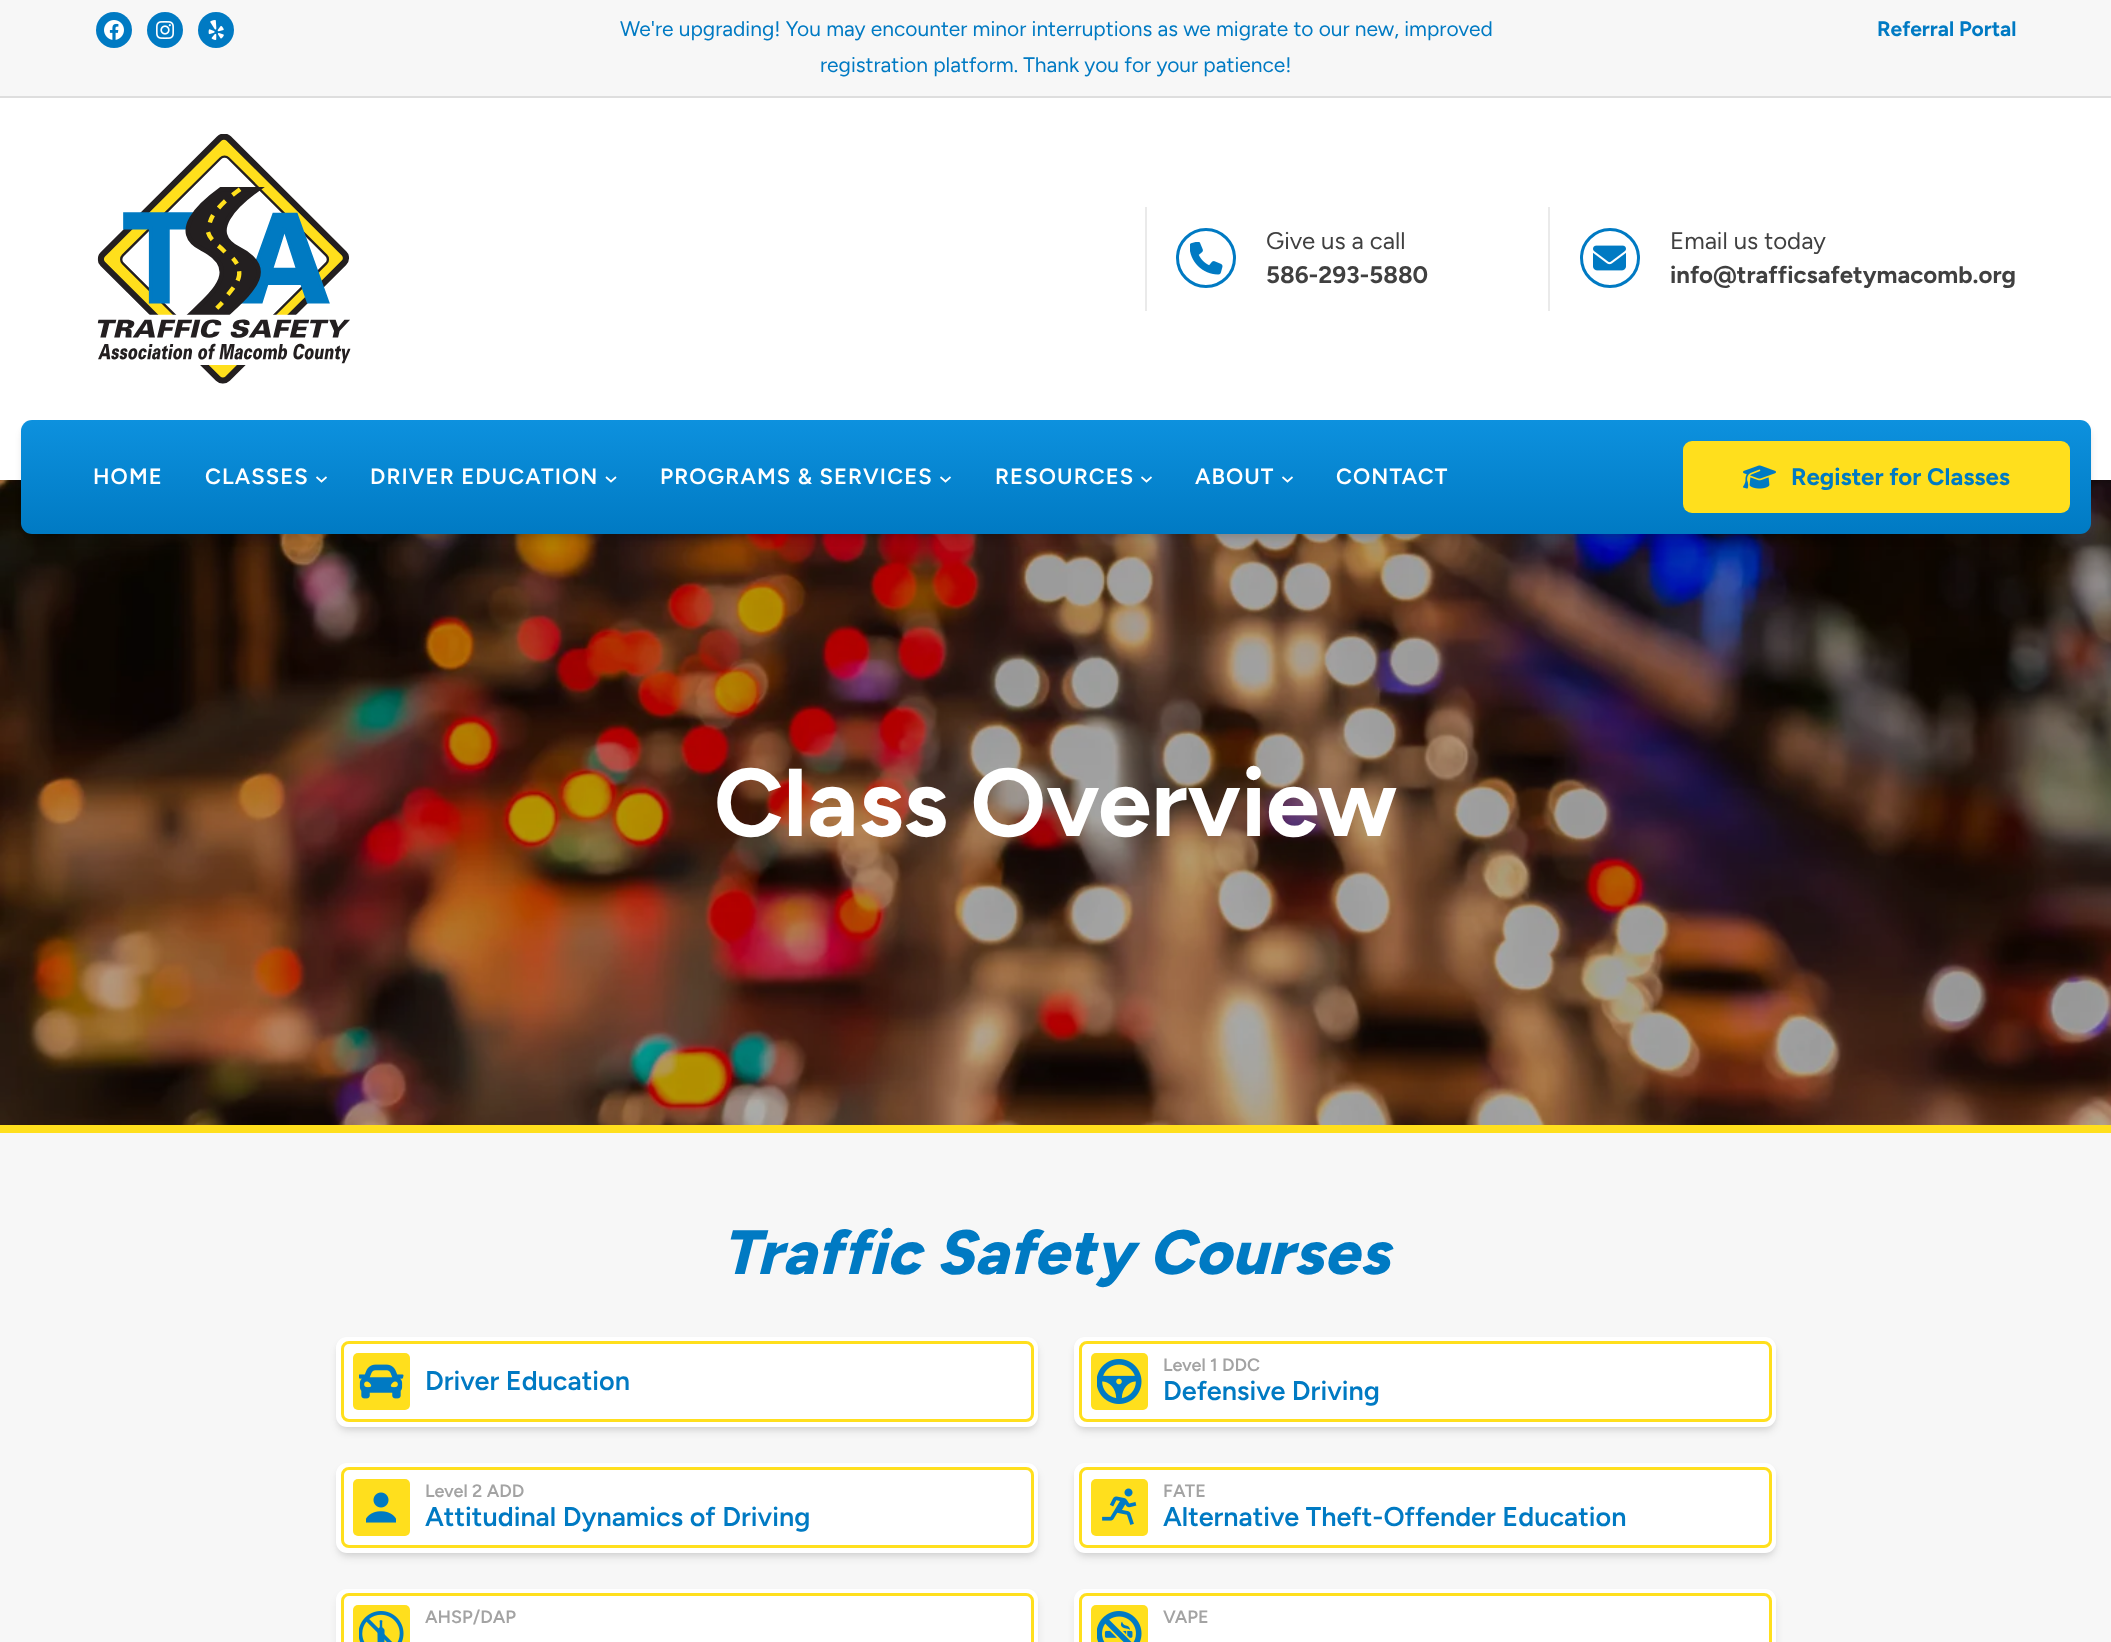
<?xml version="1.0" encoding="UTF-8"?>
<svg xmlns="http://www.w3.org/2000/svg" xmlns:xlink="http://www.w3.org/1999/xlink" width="2111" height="1642">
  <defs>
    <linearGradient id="g1" gradientUnits="userSpaceOnUse" x1="1056" y1="534" x2="1056" y2="420"><stop offset="0" stop-color="#007ac3" /><stop offset="1" stop-color="#0d91de" /></linearGradient>
  </defs>
  <rect width="100%" height="100%" fill="#ffffff" />
  <rect width="2111" height="96" fill="#f7f7f7" />
  <rect y="96" width="2111" height="2" fill="#dedede" />
  <circle cx="114" cy="30" r="18" fill="#007ac3" />
  <image x="104" y="20" width="20" height="20" xlink:href="image1.png" />
  <circle cx="165" cy="30" r="18" fill="#007ac3" />
  <image x="156" y="21" width="18" height="18" xlink:href="image2.png" />
  <circle cx="216" cy="30" r="18" fill="#007ac3" />
  <image x="208" y="20" width="16" height="20" xlink:href="image3.png" />
  <image x="97" y="134" width="254" height="250" xlink:href="image4.png" />
  <rect x="1145" y="207" width="2" height="104" fill="#eaeaea" />
  <circle cx="1206" cy="258" r="28.5" fill="none" stroke="#007ac3" stroke-width="3" />
  <image x="1190" y="242" width="33" height="33" xlink:href="image5.png" />
  <rect x="1548" y="207" width="2" height="104" fill="#eaeaea" />
  <circle cx="1610" cy="258" r="28.5" fill="none" stroke="#007ac3" stroke-width="3" />
  <image x="1593" y="245" width="33" height="26" xlink:href="image6.png" />
  <image x="0" y="480" width="2111" height="645" xlink:href="image8.png" />
  <rect x="24" y="426" width="2064" height="108" rx="8" fill="#000000" fill-opacity="0.1" filter="blur(3px)" />
  <rect x="23" y="428" width="2067" height="111" rx="9" fill="#000000" fill-opacity="0.1" filter="blur(4.5px)" />
  <rect x="21" y="420" width="2070" height="114" rx="11" fill="url(#g1)" />
  <path d="M 316.5 477 l 5 4.5 l 5 -4.5" fill="none" stroke="#ffffff" stroke-width="1.7" />
  <path d="M 606 477 l 5 4.5 l 5 -4.5" fill="none" stroke="#ffffff" stroke-width="1.7" />
  <path d="M 940.5 477 l 5 4.5 l 5 -4.5" fill="none" stroke="#ffffff" stroke-width="1.7" />
  <path d="M 1141.5 477 l 5 4.5 l 5 -4.5" fill="none" stroke="#ffffff" stroke-width="1.7" />
  <path d="M 1282.5 477 l 5 4.5 l 5 -4.5" fill="none" stroke="#ffffff" stroke-width="1.7" />
  <rect x="1683" y="441" width="387" height="72" rx="9" fill="#ffdf1d" />
  <image x="1743" y="465" width="33" height="24" xlink:href="image7.png" />
  <rect y="1133" width="2111" height="509" fill="#f7f7f7" />
  <rect y="1125" width="2111" height="8" fill="#ffdf1d" />
  <rect x="339" y="1343" width="696" height="84" rx="8" fill="#000000" fill-opacity="0.1" filter="blur(3px)" />
  <rect x="338" y="1344" width="699" height="87" rx="9" fill="#000000" fill-opacity="0.1" filter="blur(4.5px)" />
  <rect x="336" y="1337" width="702" height="90" rx="11" fill="#ffffff" />
  <rect x="342.5" y="1342.5" width="690" height="78" rx="6.5" fill="none" stroke="#ffdf1d" stroke-width="3" />
  <rect x="353" y="1353" width="57" height="57" rx="5" fill="#ffdf1d" />
  <image x="359" y="1364" width="45" height="35" xlink:href="image9.png" />
  <rect x="1077" y="1343" width="696" height="84" rx="8" fill="#000000" fill-opacity="0.1" filter="blur(3px)" />
  <rect x="1076" y="1344" width="699" height="87" rx="9" fill="#000000" fill-opacity="0.1" filter="blur(4.5px)" />
  <rect x="1074" y="1337" width="702" height="90" rx="11" fill="#ffffff" />
  <rect x="1080.5" y="1342.5" width="690" height="78" rx="6.5" fill="none" stroke="#ffdf1d" stroke-width="3" />
  <rect x="1091" y="1353" width="57" height="57" rx="5" fill="#ffdf1d" />
  <image x="1097" y="1359" width="45" height="45" xlink:href="image10.png" />
  <rect x="339" y="1469" width="696" height="84" rx="8" fill="#000000" fill-opacity="0.1" filter="blur(3px)" />
  <rect x="338" y="1470" width="699" height="87" rx="9" fill="#000000" fill-opacity="0.1" filter="blur(4.5px)" />
  <rect x="336" y="1463" width="702" height="90" rx="11" fill="#ffffff" />
  <rect x="342.5" y="1468.5" width="690" height="78" rx="6.5" fill="none" stroke="#ffdf1d" stroke-width="3" />
  <rect x="353" y="1479" width="57" height="57" rx="5" fill="#ffdf1d" />
  <image x="366" y="1492" width="30" height="31" xlink:href="image11.png" />
  <rect x="1077" y="1469" width="696" height="84" rx="8" fill="#000000" fill-opacity="0.1" filter="blur(3px)" />
  <rect x="1076" y="1470" width="699" height="87" rx="9" fill="#000000" fill-opacity="0.1" filter="blur(4.5px)" />
  <rect x="1074" y="1463" width="702" height="90" rx="11" fill="#ffffff" />
  <rect x="1080.5" y="1468.5" width="690" height="78" rx="6.5" fill="none" stroke="#ffdf1d" stroke-width="3" />
  <rect x="1091" y="1479" width="57" height="57" rx="5" fill="#ffdf1d" />
  <image x="1102" y="1488" width="35" height="37" xlink:href="image12.png" />
  <rect x="338" y="1596" width="699" height="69" rx="9" fill="#000000" fill-opacity="0.1" filter="blur(4.5px)" />
  <rect x="336" y="1589" width="702" height="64" rx="11" fill="#ffffff" />
  <rect x="342.5" y="1594.5" width="690" height="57" rx="6.5" fill="none" stroke="#ffdf1d" stroke-width="3" />
  <rect x="353" y="1605" width="57" height="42" rx="5" fill="#ffdf1d" />
  <image x="359" y="1611" width="45" height="31" xlink:href="image13.png" />
  <rect x="1076" y="1596" width="699" height="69" rx="9" fill="#000000" fill-opacity="0.1" filter="blur(4.5px)" />
  <rect x="1074" y="1589" width="702" height="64" rx="11" fill="#ffffff" />
  <rect x="1080.5" y="1594.5" width="690" height="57" rx="6.5" fill="none" stroke="#ffdf1d" stroke-width="3" />
  <rect x="1091" y="1605" width="57" height="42" rx="5" fill="#ffdf1d" />
  <image x="1097" y="1611" width="45" height="31" xlink:href="image14.png" />
  <text x="620" y="36" style="font-family: Figtree; font-size: 21px; fill: #007ac3">We're upgrading! You may encounter minor interruptions as we migrate to our new, improved</text>
  <text x="820" y="72" style="font-family: Figtree; font-size: 21px; fill: #007ac3">registration platform. Thank you for your patience!</text>
  <text x="1877" y="36" style="font-family: Figtree; font-size: 21px; font-weight: bold; fill: #007ac3">Referral Portal</text>
  <text x="1266" y="249" style="font-family: Figtree; font-size: 24px; fill: #404040">Give us a call</text>
  <text x="1266" y="283" style="font-family: Figtree; font-size: 24px; font-weight: bold; fill: #404040">586-293-5880</text>
  <text x="1670" y="249" style="font-family: Figtree; font-size: 24px; fill: #404040">Email us today</text>
  <text x="1670" y="283" style="font-family: Figtree; font-size: 24px; font-weight: bold; fill: #404040">info@trafficsafetymacomb.org</text>
  <text x="93" y="484" style="font-family: Figtree; font-size: 22px; font-weight: 600; letter-spacing: 1.1px; fill: #ffffff">HOME</text>
  <text x="205" y="484" style="font-family: Figtree; font-size: 22px; font-weight: 600; letter-spacing: 1.1px; fill: #ffffff">CLASSES</text>
  <text x="370" y="484" style="font-family: Figtree; font-size: 22px; font-weight: 600; letter-spacing: 1.1px; fill: #ffffff">DRIVER EDUCATION</text>
  <text x="660" y="484" style="font-family: Figtree; font-size: 22px; font-weight: 600; letter-spacing: 1.1px; fill: #ffffff">PROGRAMS &amp; SERVICES</text>
  <text x="995" y="484" style="font-family: Figtree; font-size: 22px; font-weight: 600; letter-spacing: 1.1px; fill: #ffffff">RESOURCES</text>
  <text x="1195" y="484" style="font-family: Figtree; font-size: 22px; font-weight: 600; letter-spacing: 1.1px; fill: #ffffff">ABOUT</text>
  <text x="1336" y="484" style="font-family: Figtree; font-size: 22px; font-weight: 600; letter-spacing: 1.1px; fill: #ffffff">CONTACT</text>
  <text x="1791" y="485" style="font-family: Figtree; font-size: 24px; font-weight: bold; fill: #007ac3">Register for Classes</text>
  <text x="714" y="836" style="font-family: Figtree; font-size: 96px; font-weight: bold; fill: #ffffff">Class Overview</text>
  <text x="721" y="1274" style="font-family: Figtree; font-size: 62.4px; font-weight: 800; font-style: italic; letter-spacing: 0.6px; fill: #007ac3">Traffic Safety Courses</text>
  <text x="425" y="1390" style="font-family: Figtree; font-size: 27px; font-weight: 600; fill: #007ac3">Driver Education</text>
  <text x="1163" y="1371" style="font-family: Figtree; font-size: 18px; font-weight: 600; fill: #a3a3a3">Level 1 DDC</text>
  <text x="1163" y="1400" style="font-family: Figtree; font-size: 27px; font-weight: 600; fill: #007ac3">Defensive Driving</text>
  <text x="425" y="1497" style="font-family: Figtree; font-size: 18px; font-weight: 600; fill: #a3a3a3">Level 2 ADD</text>
  <text x="425" y="1526" style="font-family: Figtree; font-size: 27px; font-weight: 600; fill: #007ac3">Attitudinal Dynamics of Driving</text>
  <text x="1163" y="1497" style="font-family: Figtree; font-size: 18px; font-weight: 600; fill: #a3a3a3">FATE</text>
  <text x="1163" y="1526" style="font-family: Figtree; font-size: 27px; font-weight: 600; fill: #007ac3">Alternative Theft-Offender Education</text>
  <text x="425" y="1623" style="font-family: Figtree; font-size: 18px; font-weight: 600; fill: #a3a3a3">AHSP/DAP</text>
  <text x="1163" y="1623" style="font-family: Figtree; font-size: 18px; font-weight: 600; fill: #a3a3a3">VAPE</text>
</svg>
